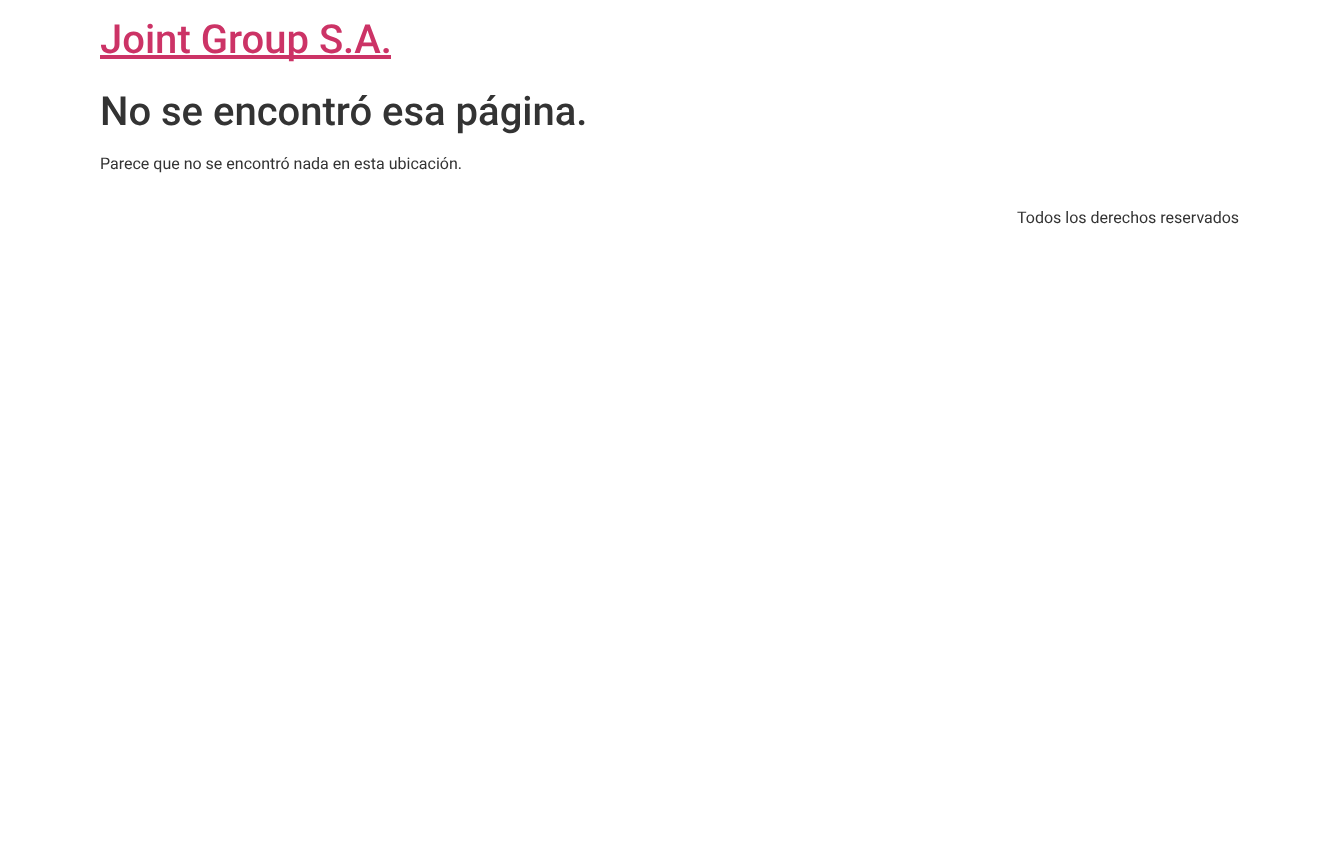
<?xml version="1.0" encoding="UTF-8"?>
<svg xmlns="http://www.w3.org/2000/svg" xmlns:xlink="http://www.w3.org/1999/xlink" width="1339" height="866">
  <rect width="100%" height="100%" fill="#ffffff" />
  <rect x="100" y="55" width="291" height="4" fill="#cc3366" />
  <text x="100" y="53" style="font-family: Roboto; font-size: 40px; font-weight: 500; fill: #cc3366">Joint Group S.A.</text>
  <text x="100" y="125" style="font-family: Roboto; font-size: 40px; font-weight: 500; fill: #333333">No se encontró esa página.</text>
  <text x="100" y="169" style="font-family: Roboto; font-size: 16px; fill: #333333">Parece que no se encontró nada en esta ubicación.</text>
  <text x="1017" y="223" style="font-family: Roboto; font-size: 16px; fill: #333333">Todos los derechos reservados</text>
</svg>
